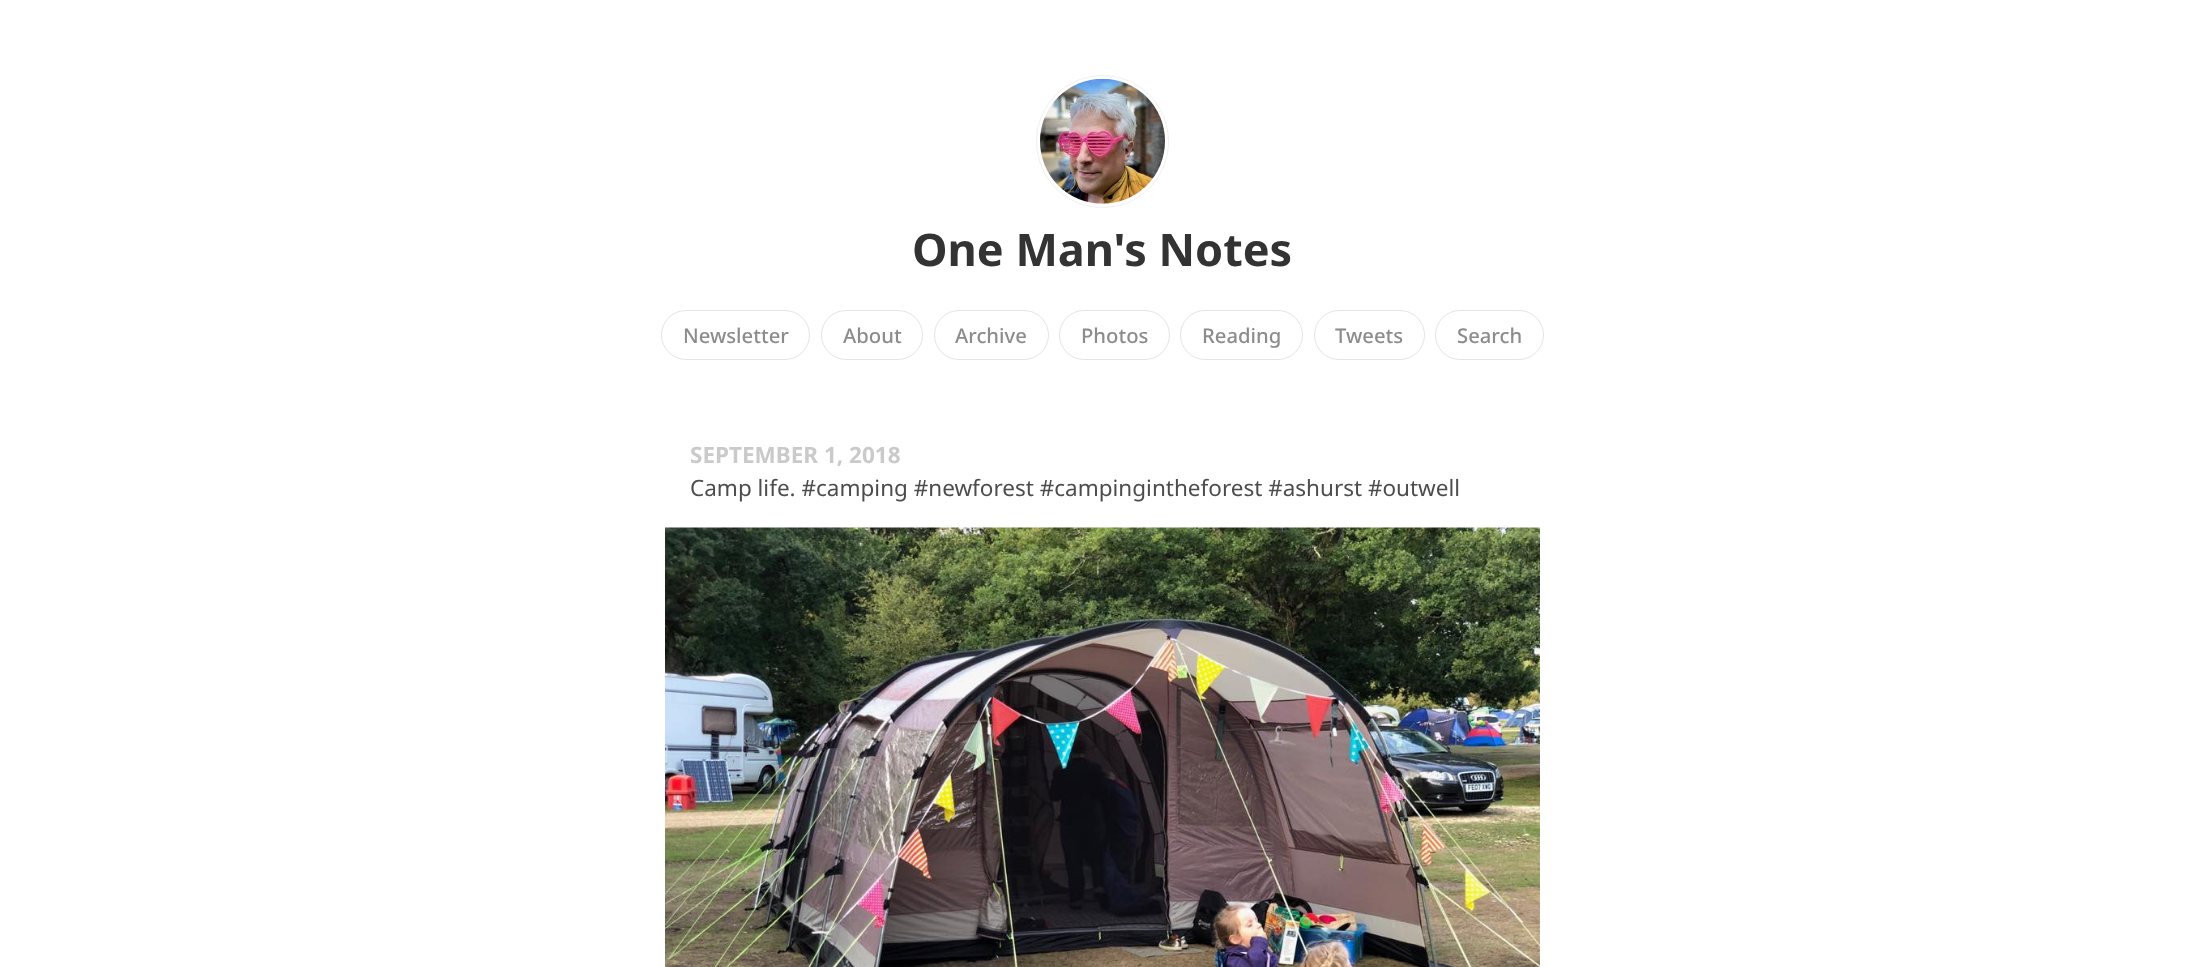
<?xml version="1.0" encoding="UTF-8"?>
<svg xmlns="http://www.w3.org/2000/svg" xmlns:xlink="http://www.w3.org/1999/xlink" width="2205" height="967">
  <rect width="100%" height="100%" fill="#ffffff" />
  <circle cx="1102.5" cy="141.5" r="66" fill="none" stroke="#f0f0f0" />
  <image x="1040" y="78" width="125" height="126" xlink:href="image1.png" />
  <rect x="661.5" y="310.5" width="148" height="49" rx="24.5" fill="none" stroke="#e4e4e4" />
  <rect x="821.5" y="310.5" width="101" height="49" rx="24.5" fill="none" stroke="#e4e4e4" />
  <rect x="934.5" y="310.5" width="114" height="49" rx="24.5" fill="none" stroke="#e4e4e4" />
  <rect x="1059.5" y="310.5" width="110" height="49" rx="24.5" fill="none" stroke="#e4e4e4" />
  <rect x="1180.5" y="310.5" width="122" height="49" rx="24.5" fill="none" stroke="#e4e4e4" />
  <rect x="1314.5" y="310.5" width="110" height="49" rx="24.5" fill="none" stroke="#e4e4e4" />
  <rect x="1435.5" y="310.5" width="108" height="49" rx="24.5" fill="none" stroke="#e4e4e4" />
  <image x="665" y="527" width="875" height="440" xlink:href="image2.png" />
  <text x="912" y="266" style="font-family: Noto Sans; font-size: 45px; font-weight: bold; fill: #333333">One Man's Notes</text>
  <text x="683" y="343" style="font-family: Noto Sans; font-size: 20.25px; font-weight: 500; fill: #8c8c8c">Newsletter</text>
  <text x="843" y="343" style="font-family: Noto Sans; font-size: 20.25px; font-weight: 500; fill: #8c8c8c">About</text>
  <text x="955" y="343" style="font-family: Noto Sans; font-size: 20.25px; font-weight: 500; fill: #8c8c8c">Archive</text>
  <text x="1081" y="343" style="font-family: Noto Sans; font-size: 20.25px; font-weight: 500; fill: #8c8c8c">Photos</text>
  <text x="1202" y="343" style="font-family: Noto Sans; font-size: 20.25px; font-weight: 500; fill: #8c8c8c">Reading</text>
  <text x="1335" y="343" style="font-family: Noto Sans; font-size: 20.25px; font-weight: 500; fill: #8c8c8c">Tweets</text>
  <text x="1457" y="343" style="font-family: Noto Sans; font-size: 20.25px; font-weight: 500; fill: #8c8c8c">Search</text>
  <text x="690" y="463" style="font-family: Noto Sans; font-size: 22.5px; font-weight: bold; fill: #cacaca">SEPTEMBER 1, 2018</text>
  <text x="690" y="496" style="font-family: Noto Sans; font-size: 22.5px; fill: #4d4d4d">Camp life. #camping #newforest #campingintheforest #ashurst #outwell</text>
</svg>
